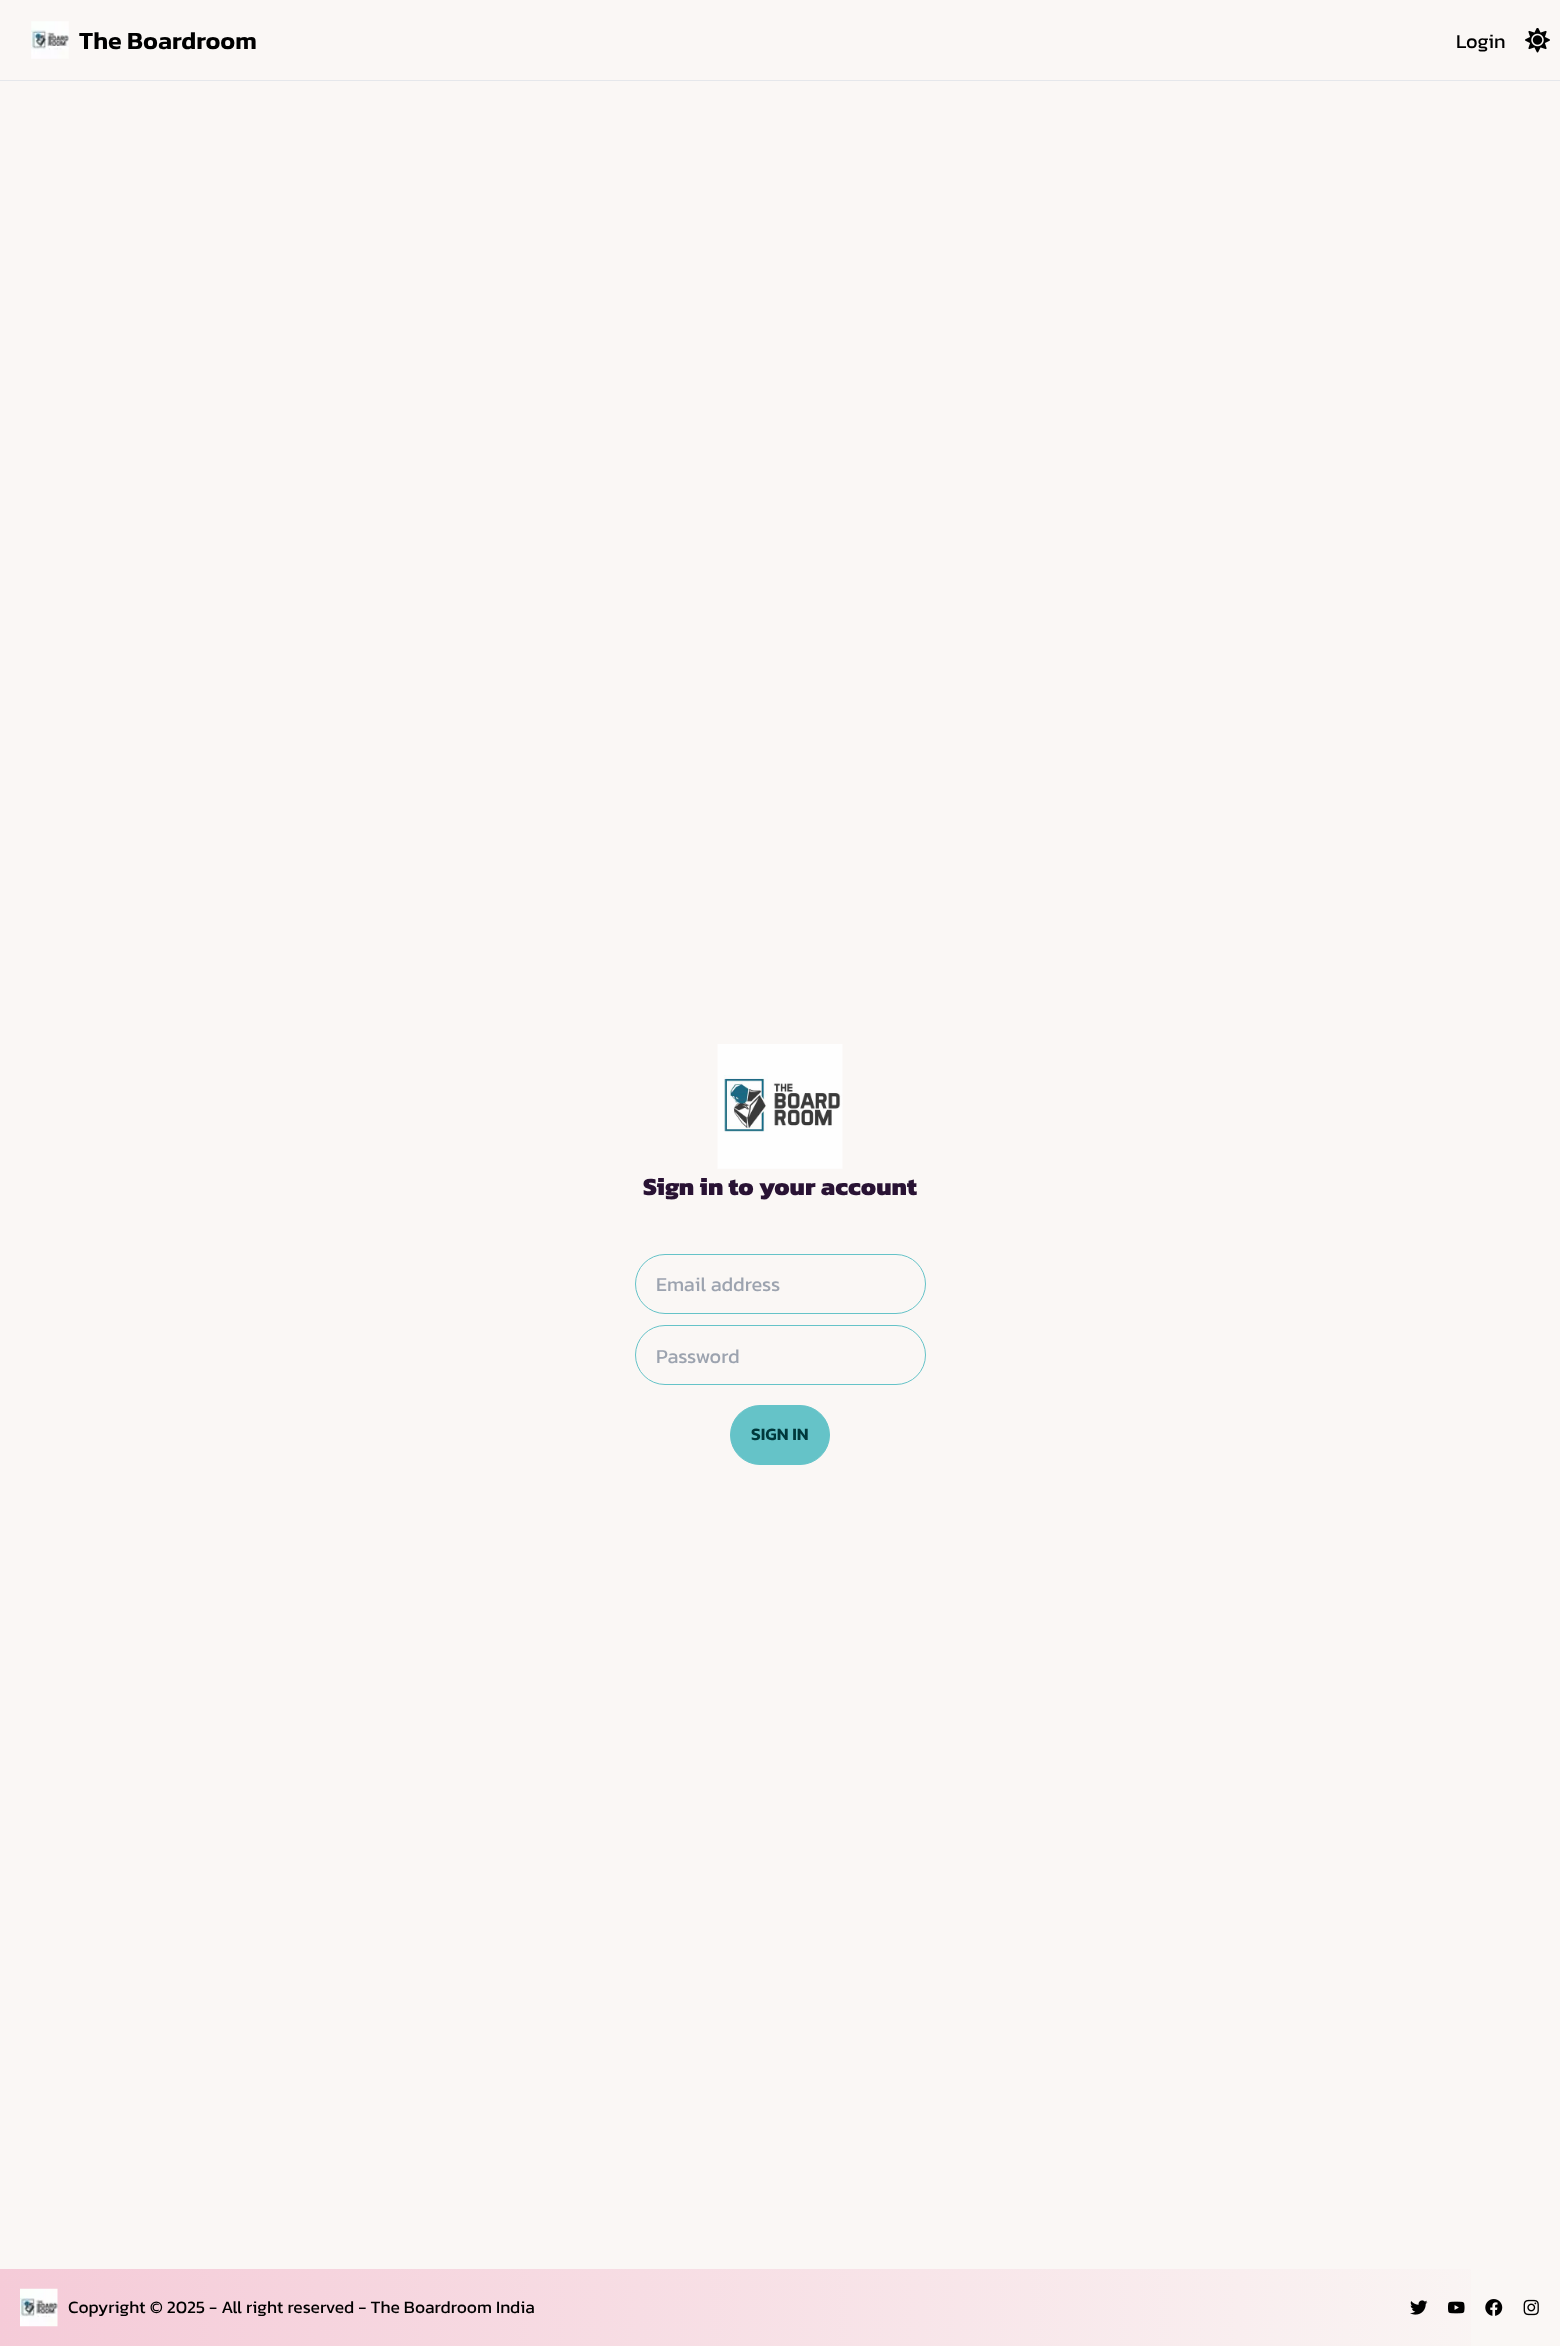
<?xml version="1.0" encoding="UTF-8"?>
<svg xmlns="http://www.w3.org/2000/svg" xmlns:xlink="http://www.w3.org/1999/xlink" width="1560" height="2346">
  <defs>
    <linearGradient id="g1" gradientUnits="userSpaceOnUse" x1="1560" y1="2308" x2="0" y2="2308"><stop offset="0" stop-color="#faf7f5" /><stop offset="1" stop-color="#f5cbd8" /></linearGradient>
  </defs>
  <rect width="100%" height="100%" fill="#faf7f5" />
  <rect y="80" width="1560" height="1" fill="#e5e7eb" />
  <image x="31" y="21" width="38" height="38" xlink:href="image1.png" />
  <image x="1525" y="28" width="25" height="25" xlink:href="image2.png" />
  <image x="717" y="1044" width="126" height="125" xlink:href="image3.png" />
  <rect x="635.5" y="1254.5" width="290" height="59" rx="29.5" fill="none" stroke="#65c3c8" />
  <rect x="635.5" y="1325.5" width="290" height="59" rx="29.5" fill="none" stroke="#65c3c8" />
  <rect x="730.5" y="1405.5" width="99" height="59" rx="29.5" fill="#65c3c8" stroke="#65c3c8" />
  <rect y="2269" width="1471" height="77" fill="url(#g1)" />
  <image x="20" y="2288" width="38" height="39" xlink:href="image4.png" />
  <image x="1410" y="2300" width="18" height="15" xlink:href="image5.png" />
  <image x="1448" y="2301" width="17" height="13" xlink:href="image6.png" />
  <image x="1485" y="2299" width="18" height="17" xlink:href="image7.png" />
  <image x="1523" y="2299" width="16" height="17" xlink:href="image8.png" />
  <text x="79" y="49" style="font-family: Kanit; font-size: 25px; font-weight: 600; fill: #000000">The Boardroom</text>
  <text x="1456" y="48" style="font-family: Kanit; font-size: 20px; fill: #000000">Login</text>
  <text x="643" y="1195" style="font-family: Kanit; font-size: 25px; font-weight: 800; fill: #291334">Sign in to your account</text>
  <text x="656" y="1291" style="font-family: Kanit; font-size: 20px; fill: #9ca3af">Email address</text>
  <text x="656" y="1363" style="font-family: Kanit; font-size: 20px; fill: #9ca3af">Password</text>
  <text x="751" y="1440" style="font-family: Kanit; font-size: 17.5px; font-weight: 600; fill: #00393c">SIGN IN</text>
  <text x="68" y="2313" style="font-family: Kanit; font-size: 17.5px; fill: #000000">Copyright © 2025 - All right reserved - The Boardroom India</text>
</svg>
